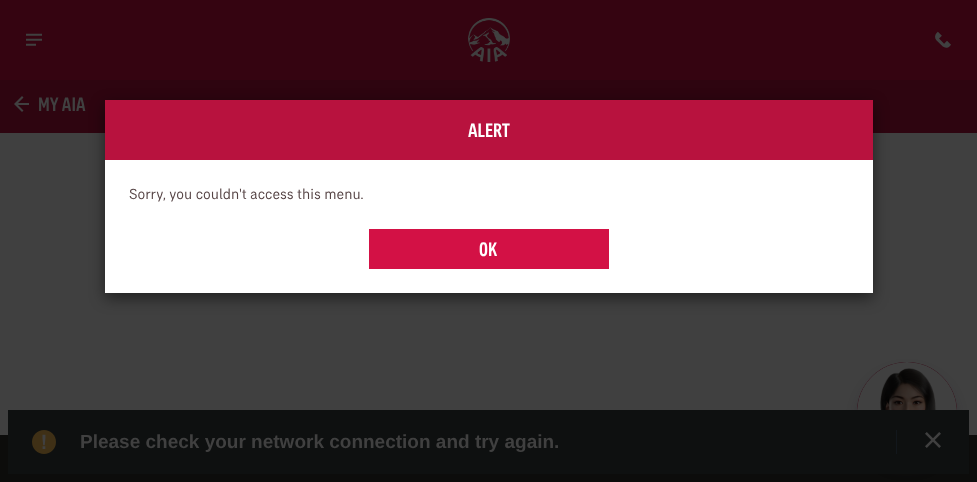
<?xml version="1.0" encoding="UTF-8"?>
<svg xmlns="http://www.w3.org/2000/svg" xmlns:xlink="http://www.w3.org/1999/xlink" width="977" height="482">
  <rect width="100%" height="100%" fill="#404040" />
  <rect width="977" height="80" fill="#350411" />
  <image x="26" y="33" width="16" height="13" xlink:href="image1.png" />
  <image x="468" y="18" width="42" height="44" xlink:href="image2.png" />
  <image x="935" y="31" width="16" height="17" xlink:href="image3.png" />
  <rect y="80" width="977" height="53" fill="#2e0510" />
  <image x="14" y="96" width="15" height="16" xlink:href="image4.png" />
  <rect x="105" y="105" width="768" height="193" fill="#000000" fill-opacity="0.5" filter="blur(7.5px)" />
  <rect x="105" y="160" width="768" height="133" fill="#ffffff" />
  <rect x="105" y="100" width="768" height="60" fill="#b8123e" />
  <rect x="369" y="229" width="240" height="40" fill="#d31145" />
  <rect y="435" width="977" height="47" fill="#0c0c0b" />
  <rect x="857" y="370" width="100" height="100" rx="50" fill="#12111f" fill-opacity="0.25" filter="blur(5.5px)" />
  <circle cx="907" cy="412" r="50" fill="#350411" />
  <rect x="8" y="410" width="961" height="64" fill="#0e1010" />
  <image x="32" y="430" width="24" height="24" xlink:href="image5.png" />
  <rect x="896" y="430" width="1" height="24" fill="#12171c" />
  <image x="925" y="432" width="16" height="16" xlink:href="image6.png" />
  <image x="857" y="362" width="100" height="48" xlink:href="image7.png" />
  <text x="38" y="111" style="font-family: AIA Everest; font-size: 20px; font-weight: 500; fill: #404040">MY AIA</text>
  <text x="468" y="137" style="font-family: AIA Everest; font-size: 20px; font-weight: 500; fill: #ffffff">ALERT</text>
  <text x="129" y="199" style="font-family: AIA Everest; font-size: 15px; fill: #554344">Sorry, you couldn't access this menu.</text>
  <text x="479" y="256" style="font-family: AIA Everest; font-size: 20px; font-weight: 500; fill: #ffffff">OK</text>
  <text x="80" y="448" style="font-family: Liberation Sans; font-size: 19px; font-weight: bold; fill: #404040">Please check your network connection and try again.</text>
</svg>
